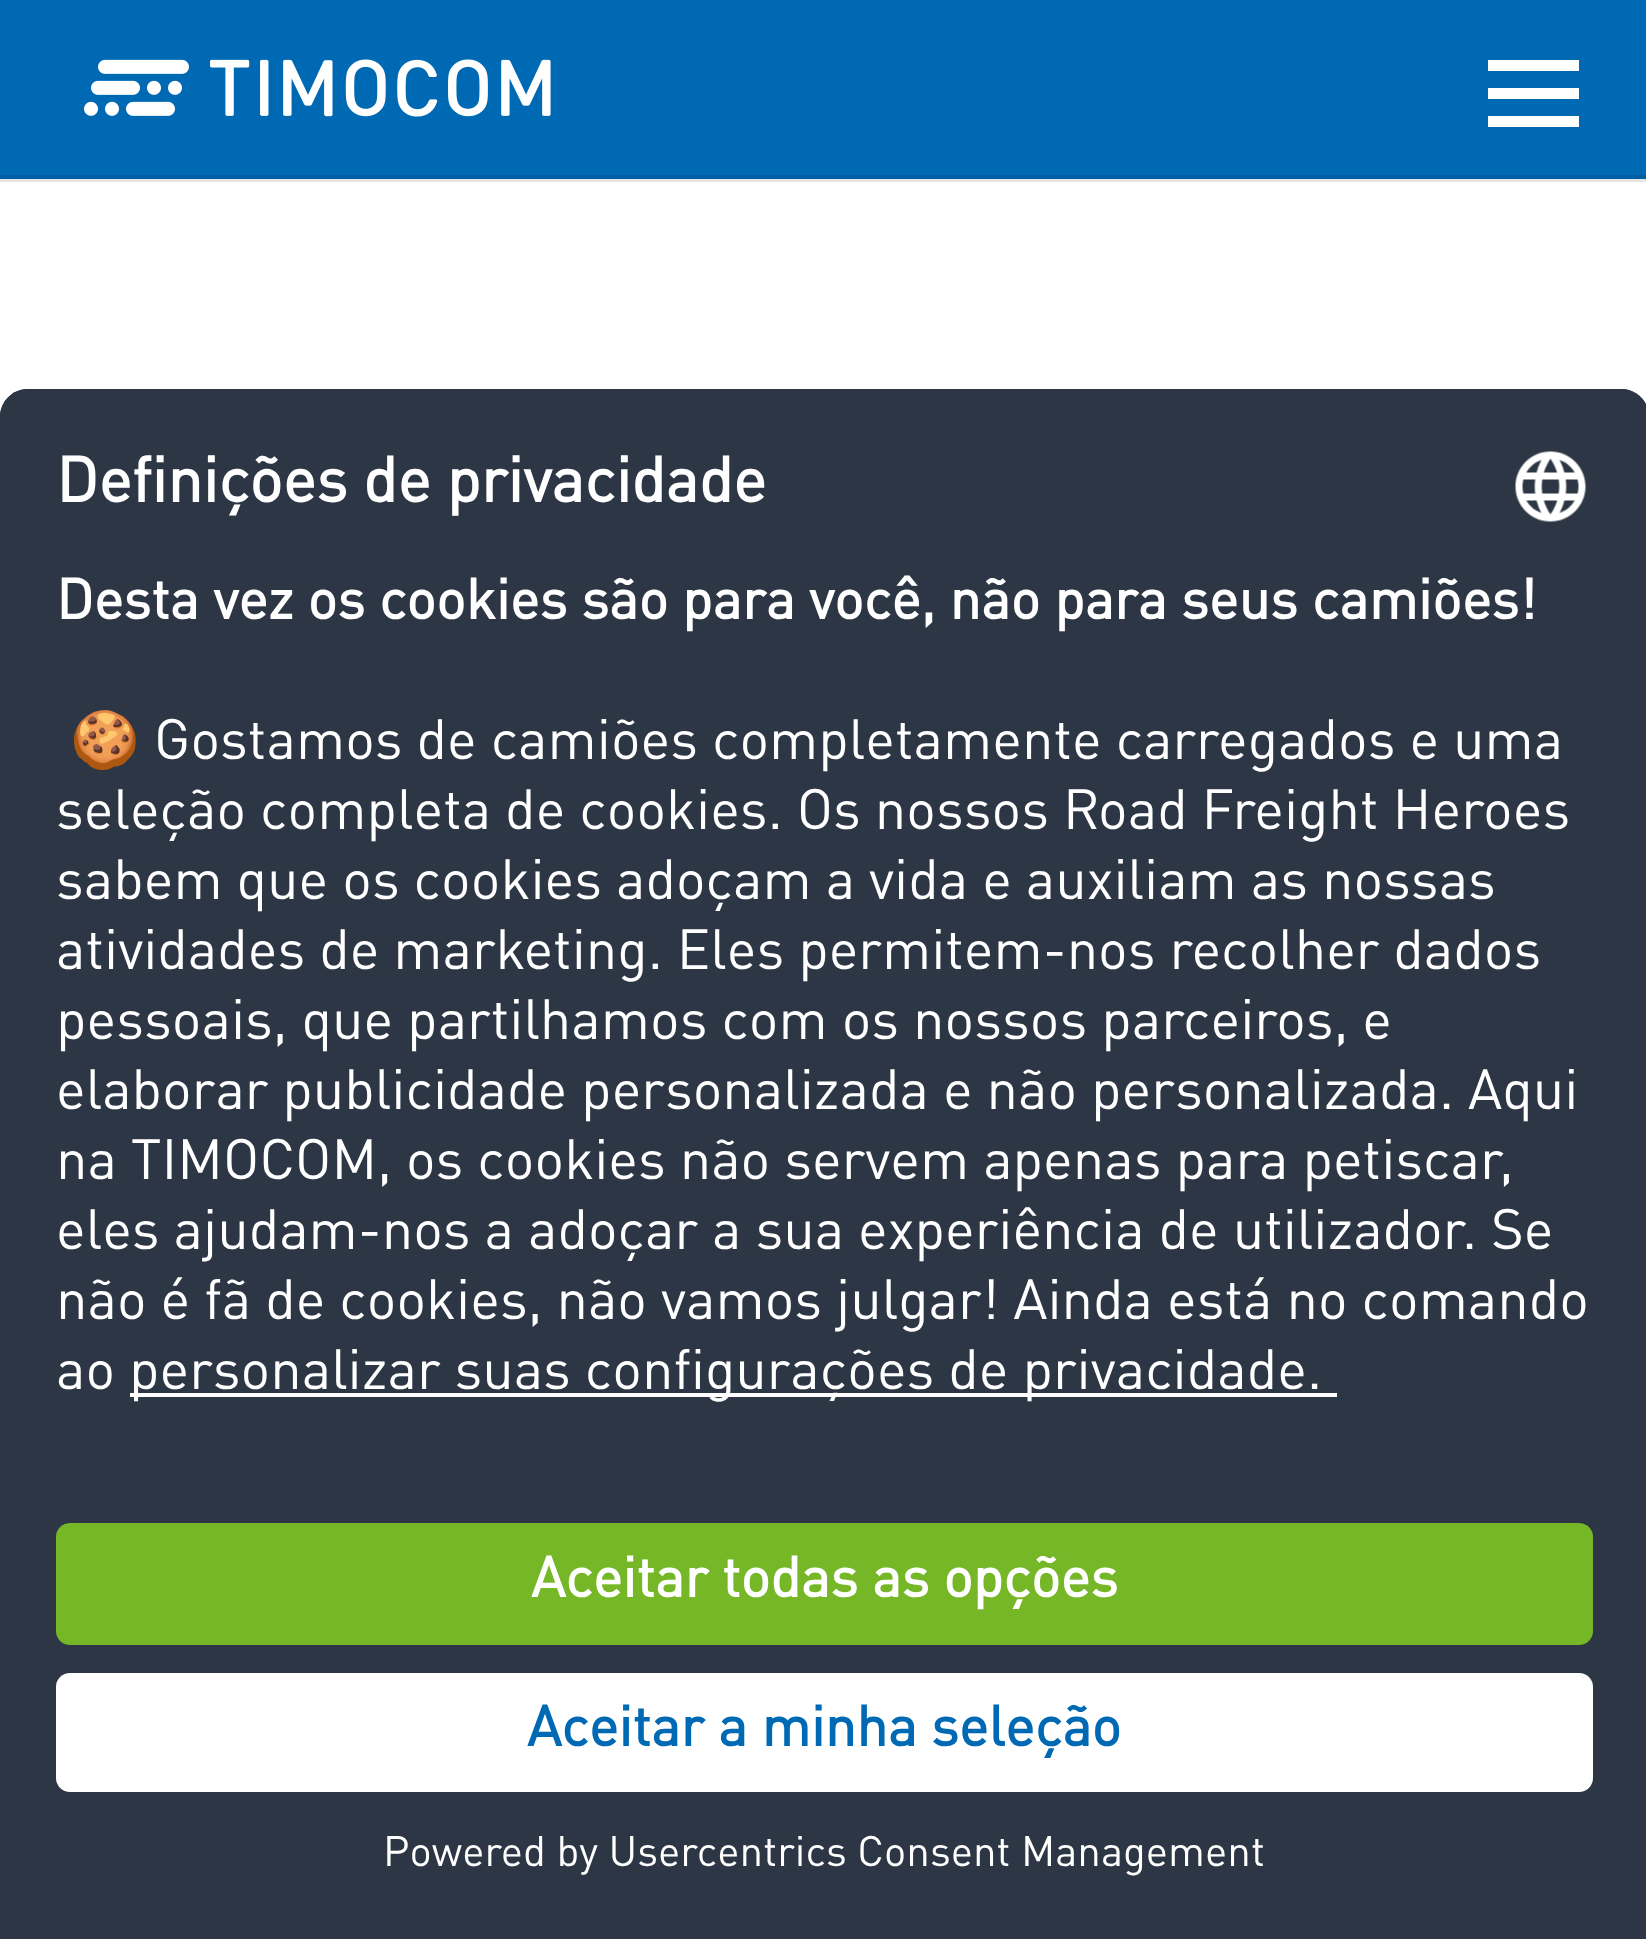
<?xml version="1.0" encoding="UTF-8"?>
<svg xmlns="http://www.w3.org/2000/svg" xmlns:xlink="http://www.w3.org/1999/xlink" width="1646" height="1939">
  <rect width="100%" height="100%" fill="#ffffff" />
  <path d="M 0 178 v 4 h 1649 v -178 h -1 v 174 z" fill="#e6e6e6" />
  <rect width="1646" height="175" fill="#0069b4" />
  <rect y="175" width="1646" height="4" fill="#005fa2" />
  <image x="84" y="59" width="467" height="58" xlink:href="image1.png" />
  <rect x="1488" y="60" width="91" height="11" fill="#ffffff" />
  <rect x="1488" y="88" width="91" height="11" fill="#ffffff" />
  <rect x="1488" y="116" width="91" height="11" fill="#ffffff" />
  <path d="M 28 389 h 1593 c 15.5 0 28 12.5 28 28 v 1522 h -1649 v -1522 c 0 -15.5 12.5 -28 28 -28 z" fill="#2c3644" />
  <path d="M 28 389 h 1593 c 15.5 0 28 12.5 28 28 v 1064 h -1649 v -1064 c 0 -15.5 12.5 -28 28 -28 z" fill="#2c3644" />
  <image x="1515" y="451" width="71" height="71" xlink:href="image2.png" />
  <rect x="130" y="1393" width="1207" height="4" fill="#ffffff" />
  <rect x="56" y="1523" width="1537" height="122" rx="14" fill="#75b727" />
  <rect x="56" y="1673" width="1537" height="119" rx="14" fill="#ffffff" />
  <text x="56" y="502" style="font-family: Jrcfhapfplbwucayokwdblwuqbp; font-size: 63px; font-weight: bold; fill: #ffffff">Definições de privacidade</text>
  <text x="56" y="619" style="font-family: Jrcfhapfplbwucayokwdblwuqbp; font-size: 56px; font-weight: bold; fill: #ffffff">Desta vez os cookies são para você, não para seus camiões!</text>
  <text x="70" y="759" style="font-family: Noto Color Emoji; font-size: 56px; fill: #ffffff">🍪</text>
  <text x="154" y="759" style="font-family: Jrcfhapfplbwucayokwdblwuqbp; font-size: 56px; fill: #ffffff">Gostamos de camiões completamente carregados e uma</text>
  <text x="56" y="829" style="font-family: Jrcfhapfplbwucayokwdblwuqbp; font-size: 56px; fill: #ffffff">seleção completa de cookies. Os nossos Road Freight Heroes</text>
  <text x="56" y="899" style="font-family: Jrcfhapfplbwucayokwdblwuqbp; font-size: 56px; fill: #ffffff">sabem que os cookies adoçam a vida e auxiliam as nossas</text>
  <text x="56" y="969" style="font-family: Jrcfhapfplbwucayokwdblwuqbp; font-size: 56px; fill: #ffffff">atividades de marketing. Eles permitem-nos recolher dados</text>
  <text x="56" y="1039" style="font-family: Jrcfhapfplbwucayokwdblwuqbp; font-size: 56px; fill: #ffffff">pessoais, que partilhamos com os nossos parceiros, e</text>
  <text x="56" y="1109" style="font-family: Jrcfhapfplbwucayokwdblwuqbp; font-size: 56px; fill: #ffffff">elaborar publicidade personalizada e não personalizada. Aqui</text>
  <text x="56" y="1179" style="font-family: Jrcfhapfplbwucayokwdblwuqbp; font-size: 56px; fill: #ffffff">na TIMOCOM, os cookies não servem apenas para petiscar,</text>
  <text x="56" y="1249" style="font-family: Jrcfhapfplbwucayokwdblwuqbp; font-size: 56px; fill: #ffffff">eles ajudam-nos a adoçar a sua experiência de utilizador. Se</text>
  <text x="56" y="1319" style="font-family: Jrcfhapfplbwucayokwdblwuqbp; font-size: 56px; fill: #ffffff">não é fã de cookies, não vamos julgar! Ainda está no comando</text>
  <text x="56" y="1389" style="font-family: Jrcfhapfplbwucayokwdblwuqbp; font-size: 56px; fill: #ffffff">ao</text>
  <text x="129" y="1389" style="font-family: Jrcfhapfplbwucayokwdblwuqbp; font-size: 56px; fill: #ffffff">personalizar suas configurações de privacidade.</text>
  <text x="531" y="1597" style="font-family: Jrcfhapfplbwucayokwdblwuqbp; font-size: 56px; font-weight: bold; fill: #ffffff">Aceitar todas as opções</text>
  <text x="527" y="1746" style="font-family: Jrcfhapfplbwucayokwdblwuqbp; font-size: 56px; font-weight: bold; fill: #0069b4">Aceitar a minha seleção</text>
  <text x="383" y="1866" style="font-family: Jrcfhapfplbwucayokwdblwuqbp; font-size: 42px; fill: #ffffff">Powered by Usercentrics Consent Management</text>
</svg>
